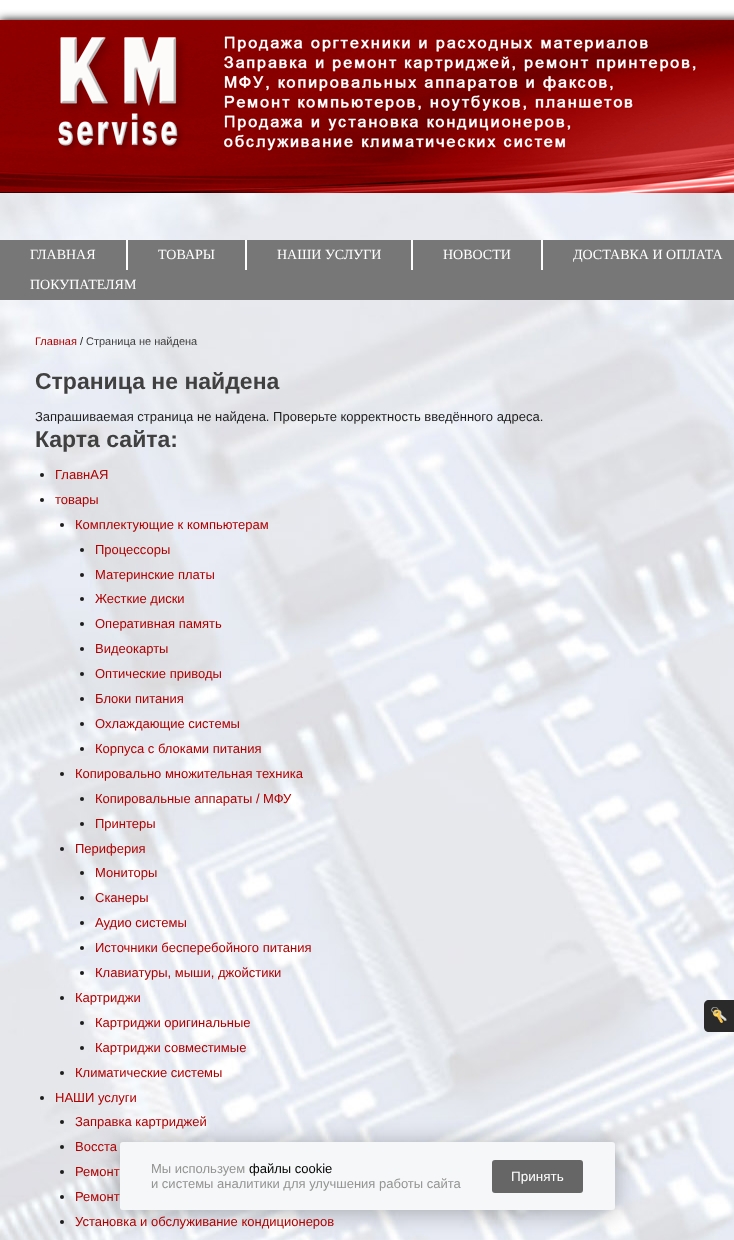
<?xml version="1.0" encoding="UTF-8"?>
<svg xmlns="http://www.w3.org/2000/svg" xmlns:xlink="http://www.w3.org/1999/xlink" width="734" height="1240">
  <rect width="100%" height="100%" fill="#ffffff" />
  <rect y="20" width="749" height="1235" fill="#000000" filter="blur(5px)" />
  <image x="0" y="193" width="734" height="1047" xlink:href="image1.png" />
  <image x="0" y="20" width="734" height="173" xlink:href="image2.png" />
  <rect y="240" width="734" height="60" fill="#777777" />
  <rect x="126" y="240" width="2" height="30" fill="#ffffff" />
  <rect x="245" y="240" width="2" height="30" fill="#ffffff" />
  <rect x="411" y="240" width="2" height="30" fill="#ffffff" />
  <rect x="541" y="240" width="2" height="30" fill="#ffffff" />
  <circle cx="42" cy="475" r="2" fill="#1d1d1d" />
  <circle cx="42" cy="500" r="2" fill="#1d1d1d" />
  <circle cx="62" cy="525" r="2" fill="#1d1d1d" />
  <circle cx="82" cy="550" r="2" fill="#1d1d1d" />
  <circle cx="82" cy="575" r="2" fill="#1d1d1d" />
  <circle cx="82" cy="599" r="2" fill="#1d1d1d" />
  <circle cx="82" cy="624" r="2" fill="#1d1d1d" />
  <circle cx="82" cy="649" r="2" fill="#1d1d1d" />
  <circle cx="82" cy="674" r="2" fill="#1d1d1d" />
  <circle cx="82" cy="699" r="2" fill="#1d1d1d" />
  <circle cx="82" cy="724" r="2" fill="#1d1d1d" />
  <circle cx="82" cy="749" r="2" fill="#1d1d1d" />
  <circle cx="62" cy="774" r="2" fill="#1d1d1d" />
  <circle cx="82" cy="799" r="2" fill="#1d1d1d" />
  <circle cx="82" cy="824" r="2" fill="#1d1d1d" />
  <circle cx="62" cy="849" r="2" fill="#1d1d1d" />
  <circle cx="82" cy="873" r="2" fill="#1d1d1d" />
  <circle cx="82" cy="898" r="2" fill="#1d1d1d" />
  <circle cx="82" cy="923" r="2" fill="#1d1d1d" />
  <circle cx="82" cy="948" r="2" fill="#1d1d1d" />
  <circle cx="82" cy="973" r="2" fill="#1d1d1d" />
  <circle cx="62" cy="998" r="2" fill="#1d1d1d" />
  <circle cx="82" cy="1023" r="2" fill="#1d1d1d" />
  <circle cx="82" cy="1048" r="2" fill="#1d1d1d" />
  <circle cx="62" cy="1073" r="2" fill="#1d1d1d" />
  <circle cx="42" cy="1098" r="2" fill="#1d1d1d" />
  <circle cx="62" cy="1122" r="2" fill="#1d1d1d" />
  <circle cx="62" cy="1147" r="2" fill="#1d1d1d" />
  <circle cx="62" cy="1172" r="2" fill="#1d1d1d" />
  <circle cx="62" cy="1197" r="2" fill="#1d1d1d" />
  <circle cx="62" cy="1222" r="2" fill="#1d1d1d" />
  <path d="M 709 1000 h 25 v 32 h -25 c -3 0 -5 -2 -5 -5 v -22 c 0 -3 2 -5 5 -5 z" fill="#2a2a2a" />
  <image x="711" y="1007" width="16" height="16" xlink:href="image3.png" />
  <rect x="120" y="1144" width="495" height="68" rx="3" fill="#000000" fill-opacity="0.3" filter="blur(12.5px)" />
  <rect x="120" y="1142" width="495" height="68" rx="3" fill="#f6f7f8" />
  <rect x="492" y="1160" width="91" height="33" rx="3" fill="#666666" />
  <text x="30" y="259" style="font-family: Liberation Serif; font-size: 14px; fill: #ffffff">ГЛАВНАЯ</text>
  <text x="158" y="259" style="font-family: Liberation Serif; font-size: 14px; fill: #ffffff">ТОВАРЫ</text>
  <text x="277" y="259" style="font-family: Liberation Serif; font-size: 14px; fill: #ffffff">НАШИ УСЛУГИ</text>
  <text x="443" y="259" style="font-family: Liberation Serif; font-size: 14px; fill: #ffffff">НОВОСТИ</text>
  <text x="573" y="259" style="font-family: Liberation Serif; font-size: 14px; fill: #ffffff">ДОСТАВКА И ОПЛАТА</text>
  <text x="30" y="289" style="font-family: Liberation Serif; font-size: 14px; fill: #ffffff">ПОКУПАТЕЛЯМ</text>
  <text x="35" y="345" style="font-family: Liberation Sans; font-size: 11px; fill: #af0000">Главная</text>
  <text x="80" y="345" style="font-family: Liberation Sans; font-size: 11px; fill: #1d1d1d">/</text>
  <text x="86" y="345" style="font-family: Liberation Sans; font-size: 11px; fill: #404040">Страница не найдена</text>
  <text x="35" y="389" style="font-family: Liberation Sans; font-size: 23px; font-weight: bold; fill: #404040">Страница не найдена</text>
  <text x="35" y="421" style="font-family: Liberation Sans; font-size: 13px; fill: #1d1d1d">Запрашиваемая страница не найдена. Проверьте корректность введённого адреса.</text>
  <text x="35" y="447" style="font-family: Liberation Sans; font-size: 23px; font-weight: bold; fill: #404040">Карта сайта:</text>
  <text x="55" y="479" style="font-family: Liberation Sans; font-size: 13px; fill: #af0000">ГлавнАЯ</text>
  <text x="55" y="504" style="font-family: Liberation Sans; font-size: 13px; fill: #af0000">товары</text>
  <text x="75" y="529" style="font-family: Liberation Sans; font-size: 13px; fill: #af0000">Комплектующие к компьютерам</text>
  <text x="95" y="554" style="font-family: Liberation Sans; font-size: 13px; fill: #af0000">Процессоры</text>
  <text x="95" y="579" style="font-family: Liberation Sans; font-size: 13px; fill: #af0000">Материнские платы</text>
  <text x="95" y="603" style="font-family: Liberation Sans; font-size: 13px; fill: #af0000">Жесткие диски</text>
  <text x="95" y="628" style="font-family: Liberation Sans; font-size: 13px; fill: #af0000">Оперативная память</text>
  <text x="95" y="653" style="font-family: Liberation Sans; font-size: 13px; fill: #af0000">Видеокарты</text>
  <text x="95" y="678" style="font-family: Liberation Sans; font-size: 13px; fill: #af0000">Оптические приводы</text>
  <text x="95" y="703" style="font-family: Liberation Sans; font-size: 13px; fill: #af0000">Блоки питания</text>
  <text x="95" y="728" style="font-family: Liberation Sans; font-size: 13px; fill: #af0000">Охлаждающие системы</text>
  <text x="95" y="753" style="font-family: Liberation Sans; font-size: 13px; fill: #af0000">Корпуса с блоками питания</text>
  <text x="75" y="778" style="font-family: Liberation Sans; font-size: 13px; fill: #af0000">Копировально множительная техника</text>
  <text x="95" y="803" style="font-family: Liberation Sans; font-size: 13px; fill: #af0000">Копировальные аппараты / МФУ</text>
  <text x="95" y="828" style="font-family: Liberation Sans; font-size: 13px; fill: #af0000">Принтеры</text>
  <text x="75" y="853" style="font-family: Liberation Sans; font-size: 13px; fill: #af0000">Периферия</text>
  <text x="95" y="877" style="font-family: Liberation Sans; font-size: 13px; fill: #af0000">Мониторы</text>
  <text x="95" y="902" style="font-family: Liberation Sans; font-size: 13px; fill: #af0000">Сканеры</text>
  <text x="95" y="927" style="font-family: Liberation Sans; font-size: 13px; fill: #af0000">Аудио системы</text>
  <text x="95" y="952" style="font-family: Liberation Sans; font-size: 13px; fill: #af0000">Источники бесперебойного питания</text>
  <text x="95" y="977" style="font-family: Liberation Sans; font-size: 13px; fill: #af0000">Клавиатуры, мыши, джойстики</text>
  <text x="75" y="1002" style="font-family: Liberation Sans; font-size: 13px; fill: #af0000">Картриджи</text>
  <text x="95" y="1027" style="font-family: Liberation Sans; font-size: 13px; fill: #af0000">Картриджи оригинальные</text>
  <text x="95" y="1052" style="font-family: Liberation Sans; font-size: 13px; fill: #af0000">Картриджи совместимые</text>
  <text x="75" y="1077" style="font-family: Liberation Sans; font-size: 13px; fill: #af0000">Климатические системы</text>
  <text x="55" y="1102" style="font-family: Liberation Sans; font-size: 13px; fill: #af0000">НАШИ услуги</text>
  <text x="75" y="1126" style="font-family: Liberation Sans; font-size: 13px; fill: #af0000">Заправка картриджей</text>
  <text x="75" y="1151" style="font-family: Liberation Sans; font-size: 13px; fill: #af0000">Восста</text>
  <text x="75" y="1176" style="font-family: Liberation Sans; font-size: 13px; fill: #af0000">Ремонт</text>
  <text x="75" y="1201" style="font-family: Liberation Sans; font-size: 13px; fill: #af0000">Ремонт</text>
  <text x="75" y="1226" style="font-family: Liberation Sans; font-size: 13px; fill: #af0000">Установка и обслуживание кондиционеров</text>
  <text x="151" y="1173" style="font-family: Liberation Sans; font-size: 13px; fill: #939393">Мы используем</text>
  <text x="249" y="1173" style="font-family: Liberation Sans; font-size: 13px; fill: #000000">файлы cookie</text>
  <text x="151" y="1188" style="font-family: Liberation Sans; font-size: 13px; fill: #939393">и системы аналитики для улучшения работы сайта</text>
  <text x="511" y="1181" style="font-family: Liberation Sans; font-size: 13.5px; fill: #ffffff">Принять</text>
</svg>
